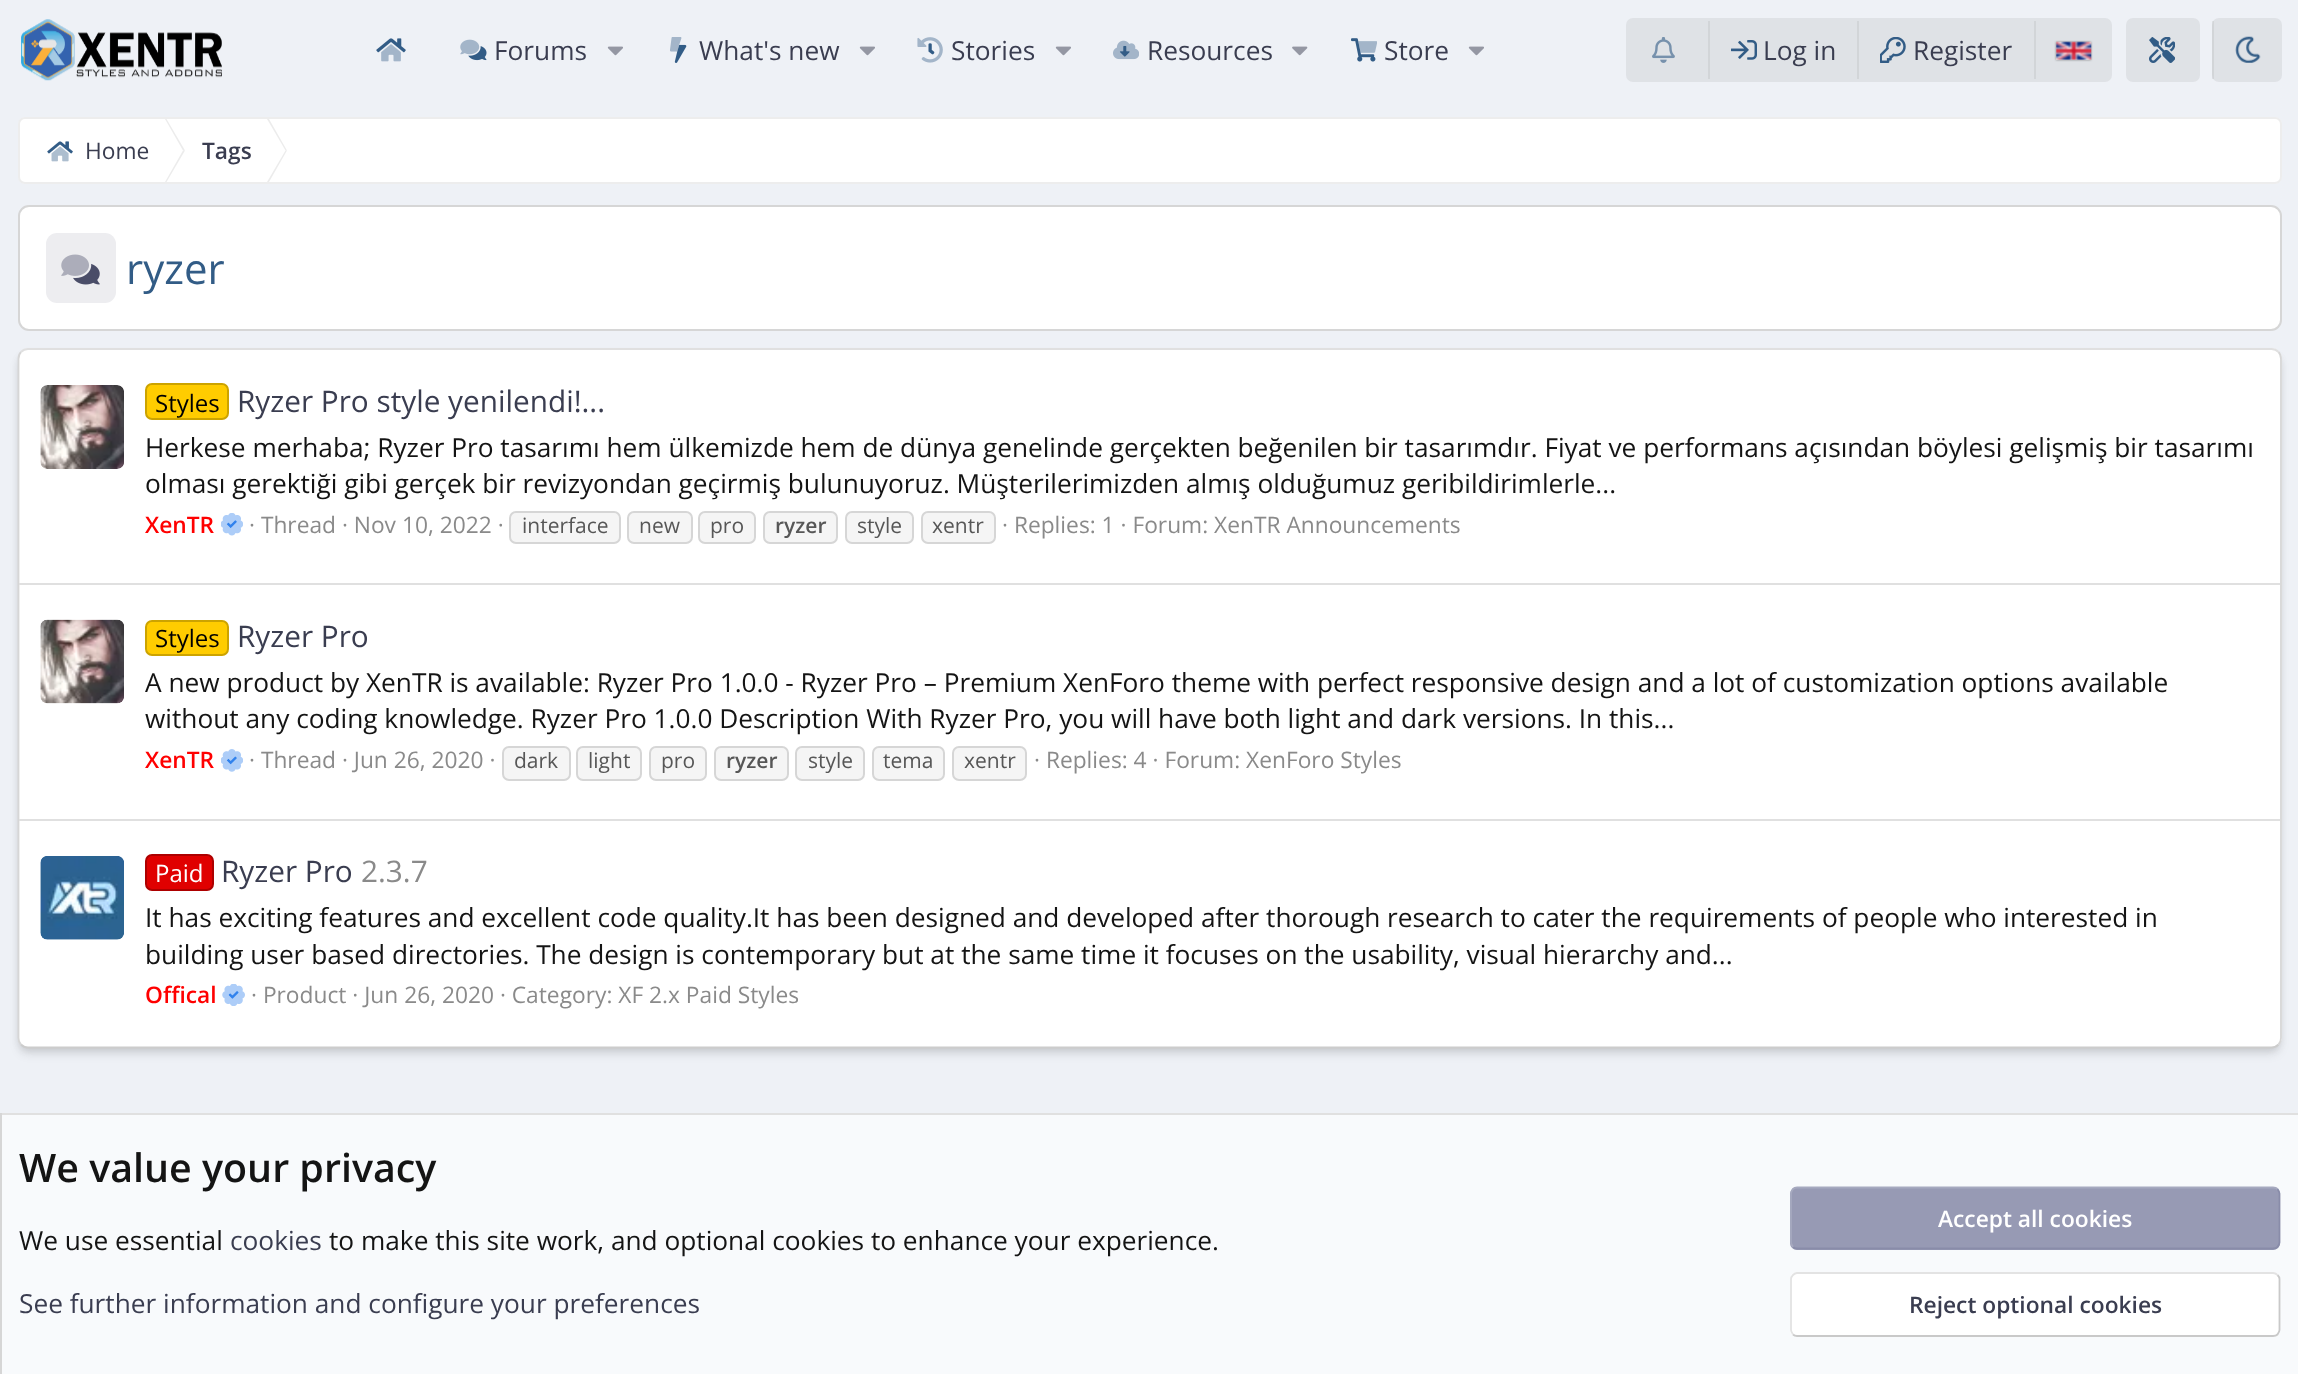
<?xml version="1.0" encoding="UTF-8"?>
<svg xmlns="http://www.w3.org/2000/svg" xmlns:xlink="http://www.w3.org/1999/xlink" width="2298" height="1374">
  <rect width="100%" height="100%" fill="#eef1f6" />
  <image x="21" y="19" width="201" height="62" xlink:href="image1.png" />
  <image x="376" y="38" width="30" height="24" xlink:href="image2.png" />
  <image x="460" y="39" width="27" height="22" xlink:href="image3.png" />
  <image x="607" y="46" width="16" height="10" xlink:href="image4.png" />
  <image x="670" y="37" width="17" height="26" xlink:href="image5.png" />
  <image x="859" y="46" width="16" height="10" xlink:href="image4.png" />
  <image x="917" y="37" width="26" height="26" xlink:href="image6.png" />
  <image x="1055" y="46" width="16" height="10" xlink:href="image4.png" />
  <image x="1113" y="40" width="26" height="20" xlink:href="image7.png" />
  <image x="1292" y="46" width="16" height="10" xlink:href="image8.png" />
  <image x="1351" y="38" width="26" height="24" xlink:href="image9.png" />
  <image x="1468" y="46" width="16" height="10" xlink:href="image4.png" />
  <rect x="1626" y="18" width="486" height="64" rx="7" fill="#dfe2e6" />
  <image x="1652" y="37" width="23" height="26" xlink:href="image10.png" />
  <rect x="1708" y="21" width="2" height="58" fill="#d2d5d8" />
  <image x="1731" y="40" width="26" height="20" xlink:href="image11.png" />
  <rect x="1857" y="21" width="2" height="58" fill="#d2d5d8" />
  <image x="1880" y="37" width="26" height="26" xlink:href="image12.png" />
  <rect x="2034" y="21" width="2" height="58" fill="#d2d5d8" />
  <rect x="2056" y="42" width="35" height="18" fill="#878787" filter="blur(1px)" />
  <rect x="2056" y="42" width="35" height="18" fill="#dbdbdb" />
  <image x="2056" y="41" width="36" height="19" xlink:href="image13.png" />
  <rect x="2126" y="18" width="74" height="64" rx="7" fill="#dfe2e6" />
  <image x="2149" y="37" width="26" height="26" xlink:href="image14.png" />
  <rect x="2212" y="18" width="70" height="64" rx="7" fill="#dfe2e6" />
  <rect x="2212" y="21" width="2" height="58" fill="#8a8a8a" fill-opacity="0.15" />
  <image x="2235" y="36" width="26" height="27" xlink:href="image15.png" />
  <rect x="18" y="117" width="2264" height="67" rx="7" fill="#ffffff" />
  <rect x="19" y="118" width="2262" height="65" rx="6" fill="none" stroke="#cccccc" stroke-opacity="0.35" stroke-width="2" />
  <image x="47" y="141" width="26" height="21" xlink:href="image16.png" />
  <path d="M 165 119 h 1.5 l 18.5 31.5 h -2 z" fill="#ececec" />
  <path d="M 183 150.5 h 2 l -18.5 31.5 h -1.5 z" fill="#ececec" />
  <path d="M 267 119 h 2 l 18 31.5 h -1.5 z" fill="#ececec" />
  <path d="M 285.5 150.5 h 1.5 l -18 31.5 h -2 z" fill="#ececec" />
  <rect x="19" y="206" width="2262" height="124" rx="10" fill="#ffffff" stroke="#d6d6d6" stroke-width="2" />
  <rect x="46" y="233" width="70" height="70" rx="11" fill="#ededf0" />
  <image x="61" y="254" width="39" height="31" xlink:href="image17.png" />
  <rect x="19" y="354" width="2261" height="696" rx="9" fill="#141414" fill-opacity="0.1" filter="blur(3.5px)" />
  <rect x="19" y="357" width="2261" height="697" rx="9" fill="#141414" fill-opacity="0.1" filter="blur(5px)" />
  <rect x="18" y="348" width="2264" height="700" rx="11" fill="#ffffff" />
  <path d="M 21 352 c 2 -2 4.5 -3 7 -3 h 2243.5 c 2.5 0 5 1 7 3" fill="none" stroke="#e0e0e0" stroke-width="1.8" />
  <path d="M 2278.5 352 c 1.5 1.5 2.5 4 2.5 7 v 679 c 0 2.5 -1 5 -2.5 6.5" fill="none" stroke="#d6d6d6" stroke-width="1.8" />
  <path d="M 2278.5 1044.5 c -2 2 -4.5 3 -7 3 h -2243.5 c -2.5 0 -5 -1 -7 -3" fill="none" stroke="#cccccc" stroke-width="1.8" />
  <path d="M 21 1044.5 c -1.5 -1.5 -2.5 -4 -2.5 -6.5 v -679 c 0 -3 1 -5.5 2.5 -7" fill="none" stroke="#d6d6d6" stroke-width="1.8" />
  <image x="40" y="385" width="84" height="84" xlink:href="image18.png" />
  <rect x="146" y="384" width="82" height="35" rx="6" fill="#ffcc00" stroke="#cca300" stroke-width="2" />
  <image x="221" y="513" width="22" height="23" xlink:href="image19.png" />
  <rect x="510" y="512" width="110" height="31" rx="6" fill="#f5f5f5" stroke="#d6d6d6" stroke-width="2" />
  <rect x="628" y="512" width="64" height="31" rx="6" fill="#f5f5f5" stroke="#d6d6d6" stroke-width="2" />
  <rect x="699" y="512" width="56" height="31" rx="6" fill="#f5f5f5" stroke="#d6d6d6" stroke-width="2" />
  <rect x="764" y="512" width="73" height="31" rx="6" fill="#f5f5f5" stroke="#d6d6d6" stroke-width="2" />
  <rect x="846" y="512" width="67" height="31" rx="6" fill="#f5f5f5" stroke="#d6d6d6" stroke-width="2" />
  <rect x="922" y="512" width="73" height="31" rx="6" fill="#f5f5f5" stroke="#d6d6d6" stroke-width="2" />
  <rect x="19" y="583" width="2261" height="2" fill="#e0e0e0" />
  <image x="40" y="619" width="84" height="85" xlink:href="image20.png" />
  <rect x="146" y="621" width="82" height="34" rx="6" fill="#ffcc00" stroke="#cca300" stroke-width="2" />
  <image x="221" y="749" width="22" height="23" xlink:href="image21.png" />
  <rect x="503" y="747" width="67" height="33" rx="6" fill="#f5f5f5" stroke="#d6d6d6" stroke-width="2" />
  <rect x="577" y="747" width="64" height="33" rx="6" fill="#f5f5f5" stroke="#d6d6d6" stroke-width="2" />
  <rect x="650" y="747" width="56" height="33" rx="6" fill="#f5f5f5" stroke="#d6d6d6" stroke-width="2" />
  <rect x="715" y="747" width="73" height="33" rx="6" fill="#f5f5f5" stroke="#d6d6d6" stroke-width="2" />
  <rect x="796" y="747" width="68" height="33" rx="6" fill="#f5f5f5" stroke="#d6d6d6" stroke-width="2" />
  <rect x="873" y="747" width="71" height="33" rx="6" fill="#f5f5f5" stroke="#d6d6d6" stroke-width="2" />
  <rect x="953" y="747" width="73" height="33" rx="6" fill="#f5f5f5" stroke="#d6d6d6" stroke-width="2" />
  <rect x="19" y="819" width="2261" height="2" fill="#e0e0e0" />
  <image x="40" y="856" width="84" height="84" xlink:href="image22.png" />
  <rect x="146" y="855" width="67" height="35" rx="6" fill="#e00000" stroke="#ad0000" stroke-width="2" />
  <image x="222" y="984" width="23" height="22" xlink:href="image23.png" />
  <rect x="2" y="1115" width="2296" height="259" fill="#f8fafc" />
  <rect y="1113" width="2298" height="2" fill="#e0e0e0" />
  <rect y="1113" width="2" height="261" fill="#d6d6d6" />
  <rect x="1790" y="1187" width="490" height="63" rx="7" fill="#979ab4" />
  <path d="M 2277.5 1189 c 1 1.5 2 3 2 4.5 v 49 c 0 1.5 -1 3 -2 4.5 c -1 1 -2.5 1.5 -4.5 1.5 h -476 c -1.5 0 -3 -0.5 -4 -1.5" fill="none" stroke="#898ca9" stroke-width="1.8" />
  <path d="M 1793 1247 c -1 -1.5 -2 -3 -2 -4.5 v -49 c 0 -1.5 1 -3 2 -4.5 c 1 -1 2.5 -1.5 4 -1.5 h 476 c 2 0 3.5 0.5 4.5 1.5" fill="none" stroke="#a6a9bf" stroke-width="1.8" />
  <rect x="1790" y="1272" width="490" height="65" rx="7" fill="#ffffff" />
  <path d="M 2277.5 1275 c 1 1 2 2.5 2 4 v 51 c 0 1.5 -1 3 -2 4.5 c -1 1 -2.5 1.5 -4.5 1.5 h -476 c -1.5 0 -3 -0.5 -4 -1.5" fill="none" stroke="#c9c9c9" stroke-width="1.8" />
  <path d="M 1793 1334.5 c -1 -1.5 -2 -3 -2 -4.5 v -51 c 0 -1.5 1 -3 2 -4 c 1 -1 2.5 -2 4 -2 h 476 c 2 0 3.5 1 4.5 2" fill="none" stroke="#e3e3e3" stroke-width="1.8" />
  <text x="494" y="60" style="font-family: Open Sans; font-size: 26.25px; fill: #3a3d50">Forums</text>
  <text x="699" y="60" style="font-family: Open Sans; font-size: 26.25px; fill: #3a3d50">What's new</text>
  <text x="951" y="60" style="font-family: Open Sans; font-size: 26.25px; fill: #3a3d50">Stories</text>
  <text x="1147" y="60" style="font-family: Open Sans; font-size: 26.25px; fill: #3a3d50">Resources</text>
  <text x="1384" y="60" style="font-family: Open Sans; font-size: 26.25px; fill: #3a3d50">Store</text>
  <text x="1763" y="60" style="font-family: Open Sans; font-size: 26.25px; fill: #3a3d50">Log in</text>
  <text x="1913" y="60" style="font-family: Open Sans; font-size: 26.25px; fill: #3a3d50">Register</text>
  <text x="85" y="159" style="font-family: Open Sans; font-size: 22.75px; fill: #3a3d50">Home</text>
  <text x="202" y="159" style="font-family: Open Sans; font-size: 22.75px; font-weight: 600; fill: #3a3d50">Tags</text>
  <text x="126" y="284" style="font-family: Open Sans; font-size: 42px; fill: #325c86">ryzer</text>
  <text x="155" y="412" style="font-family: Open Sans; font-size: 24px; fill: #000000">Styles</text>
  <text x="237" y="412" style="font-family: Open Sans; font-size: 29.75px; fill: #3a3d50">Ryzer Pro style yenilendi!...</text>
  <text x="145" y="457" style="font-family: Open Sans; font-size: 26.25px; fill: #141414">Herkese merhaba; Ryzer Pro tasarımı hem ülkemizde hem de dünya genelinde gerçekten beğenilen bir tasarımdır. Fiyat ve performans açısından böylesi gelişmiş bir tasarımı</text>
  <text x="145" y="493" style="font-family: Open Sans; font-size: 26.25px; fill: #141414">olması gerektiği gibi gerçek bir revizyondan geçirmiş bulunuyoruz. Müşterilerimizden almış olduğumuz geribildirimlerle...</text>
  <text x="145" y="533" style="font-family: Open Sans; font-size: 22.75px; font-weight: 600; fill: #ff0000">XenTR</text>
  <text x="249" y="533" style="font-family: Open Sans; font-size: 22.75px; fill: #8a8a8a">· Thread · Nov 10, 2022 ·</text>
  <text x="522" y="533" style="font-family: Open Sans; font-size: 21px; fill: #575757">interface</text>
  <text x="639" y="533" style="font-family: Open Sans; font-size: 21px; fill: #575757">new</text>
  <text x="710" y="533" style="font-family: Open Sans; font-size: 21px; fill: #575757">pro</text>
  <text x="775" y="533" style="font-family: Open Sans; font-size: 21px; font-weight: 600; fill: #575757">ryzer</text>
  <text x="857" y="533" style="font-family: Open Sans; font-size: 21px; fill: #575757">style</text>
  <text x="932" y="533" style="font-family: Open Sans; font-size: 21px; fill: #575757">xentr</text>
  <text x="1002" y="533" style="font-family: Open Sans; font-size: 22.75px; fill: #8a8a8a">· Replies: 1 · Forum: XenTR Announcements</text>
  <text x="155" y="647" style="font-family: Open Sans; font-size: 24px; fill: #000000">Styles</text>
  <text x="237" y="647" style="font-family: Open Sans; font-size: 29.75px; fill: #3a3d50">Ryzer Pro</text>
  <text x="145" y="692" style="font-family: Open Sans; font-size: 26.25px; fill: #141414">A new product by XenTR is available: Ryzer Pro 1.0.0 - Ryzer Pro – Premium XenForo theme with perfect responsive design and a lot of customization options available</text>
  <text x="145" y="728" style="font-family: Open Sans; font-size: 26.25px; fill: #141414">without any coding knowledge. Ryzer Pro 1.0.0 Description With Ryzer Pro, you will have both light and dark versions. In this...</text>
  <text x="145" y="768" style="font-family: Open Sans; font-size: 22.75px; font-weight: 600; fill: #ff0000">XenTR</text>
  <text x="249" y="768" style="font-family: Open Sans; font-size: 22.75px; fill: #8a8a8a">· Thread · Jun 26, 2020 ·</text>
  <text x="514" y="768" style="font-family: Open Sans; font-size: 21px; fill: #575757">dark</text>
  <text x="588" y="768" style="font-family: Open Sans; font-size: 21px; fill: #575757">light</text>
  <text x="661" y="768" style="font-family: Open Sans; font-size: 21px; fill: #575757">pro</text>
  <text x="726" y="768" style="font-family: Open Sans; font-size: 21px; font-weight: 600; fill: #575757">ryzer</text>
  <text x="808" y="768" style="font-family: Open Sans; font-size: 21px; fill: #575757">style</text>
  <text x="883" y="768" style="font-family: Open Sans; font-size: 21px; fill: #575757">tema</text>
  <text x="964" y="768" style="font-family: Open Sans; font-size: 21px; fill: #575757">xentr</text>
  <text x="1034" y="768" style="font-family: Open Sans; font-size: 22.75px; fill: #8a8a8a">· Replies: 4 · Forum: XenForo Styles</text>
  <text x="155" y="882" style="font-family: Open Sans; font-size: 24px; fill: #ffffff">Paid</text>
  <text x="221" y="882" style="font-family: Open Sans; font-size: 29.75px; fill: #3a3d50">Ryzer Pro</text>
  <text x="361" y="882" style="font-family: Open Sans; font-size: 29.75px; fill: #8a8a8a">2.3.7</text>
  <text x="145" y="927" style="font-family: Open Sans; font-size: 26.25px; fill: #141414">It has exciting features and excellent code quality.It has been designed and developed after thorough research to cater the requirements of people who interested in</text>
  <text x="145" y="964" style="font-family: Open Sans; font-size: 26.25px; fill: #141414">building user based directories. The design is contemporary but at the same time it focuses on the usability, visual hierarchy and...</text>
  <text x="145" y="1003" style="font-family: Open Sans; font-size: 22.75px; font-weight: 600; fill: #ff0000">Offical</text>
  <text x="251" y="1003" style="font-family: Open Sans; font-size: 22.75px; fill: #8a8a8a">· Product · Jun 26, 2020 · Category: XF 2.x Paid Styles</text>
  <text x="19" y="1182" style="font-family: Open Sans; font-size: 39.4px; font-weight: 600; fill: #141414">We value your privacy</text>
  <text x="19" y="1250" style="font-family: Open Sans; font-size: 26.25px; fill: #141414">We use essential</text>
  <text x="230" y="1250" style="font-family: Open Sans; font-size: 26.25px; fill: #3a3d50">cookies</text>
  <text x="329" y="1250" style="font-family: Open Sans; font-size: 26.25px; fill: #141414">to make this site work, and optional cookies to enhance your experience.</text>
  <text x="19" y="1313" style="font-family: Open Sans; font-size: 26.25px; fill: #3a3d50">See further information and configure your preferences</text>
  <text x="1938" y="1227" style="font-family: Open Sans; font-size: 22.75px; font-weight: 600; fill: #ffffff">Accept all cookies</text>
  <text x="1909" y="1313" style="font-family: Open Sans; font-size: 22.75px; font-weight: 600; fill: #3a3d50">Reject optional cookies</text>
</svg>
